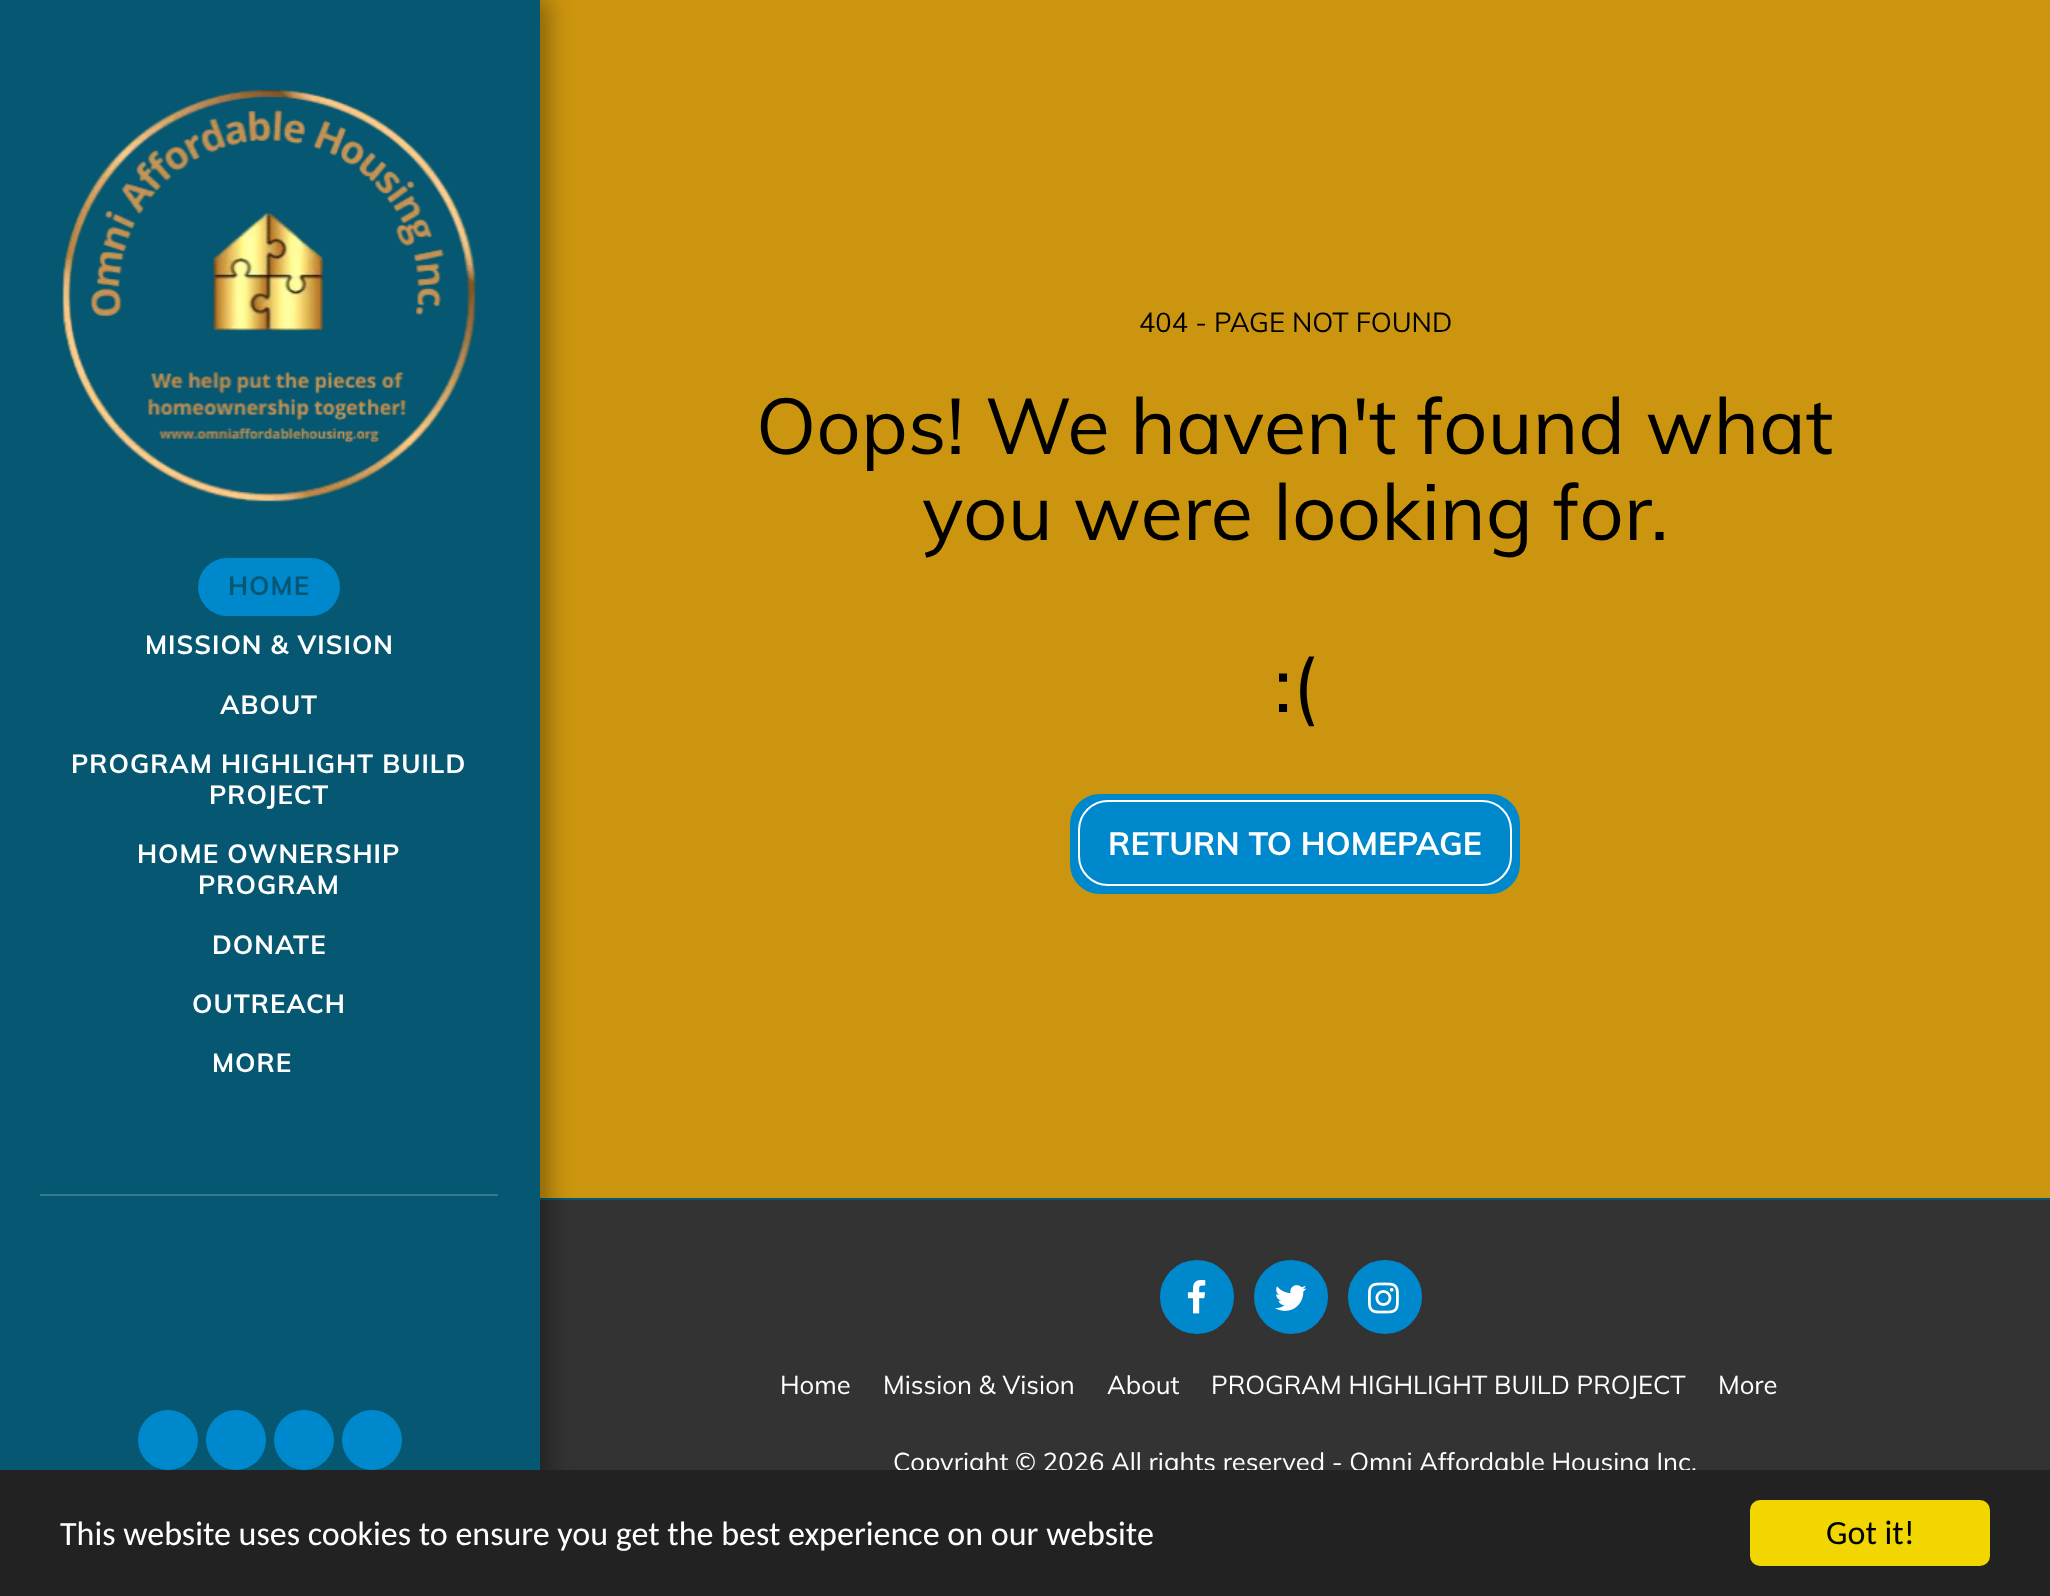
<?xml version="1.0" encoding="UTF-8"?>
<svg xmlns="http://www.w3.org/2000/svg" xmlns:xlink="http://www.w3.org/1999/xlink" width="2050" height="1596">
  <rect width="100%" height="100%" fill="#cc950f" />
  <rect x="540" y="1198" width="1510" height="2" fill="#055772" />
  <rect x="540" y="1200" width="1510" height="270" fill="#333333" />
  <rect y="-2" width="548" height="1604" fill="#000000" fill-opacity="0.35" filter="blur(12px)" />
  <rect width="540" height="1470" fill="#055772" />
  <image x="62" y="90" width="414" height="413" xlink:href="image1.png" />
  <rect x="198" y="558" width="142" height="58" rx="29" fill="#0088cc" />
  <rect x="40" y="1194" width="458" height="2" fill="#37798e" />
  <circle cx="168" cy="1440" r="30" fill="#0088cc" />
  <circle cx="236" cy="1440" r="30" fill="#0088cc" />
  <circle cx="304" cy="1440" r="30" fill="#0088cc" />
  <circle cx="372" cy="1440" r="30" fill="#0088cc" />
  <rect x="1071" y="795" width="448" height="98" rx="29" fill="#0088cc" stroke="#0088cc" stroke-width="2" />
  <rect x="1079" y="801" width="432" height="84" rx="29" fill="none" stroke="#ffffff" stroke-width="2" />
  <circle cx="1197" cy="1297" r="36" fill="#0088cc" stroke="#0088cc" stroke-width="2" />
  <image x="1187" y="1280" width="19" height="34" xlink:href="image2.png" />
  <circle cx="1291" cy="1297" r="36" fill="#0088cc" stroke="#0088cc" stroke-width="2" />
  <image x="1275" y="1285" width="31" height="26" xlink:href="image3.png" />
  <circle cx="1385" cy="1297" r="36" fill="#0088cc" stroke="#0088cc" stroke-width="2" />
  <image x="1368" y="1282" width="31" height="32" xlink:href="image4.png" />
  <text x="228" y="595" style="font-family: Muli; font-size: 26px; font-weight: bold; letter-spacing: 1px; fill: #055772">HOME</text>
  <text x="145" y="654" style="font-family: Muli; font-size: 26px; font-weight: bold; letter-spacing: 1px; fill: #ffffff">MISSION &amp; VISION</text>
  <text x="220" y="714" style="font-family: Muli; font-size: 26px; font-weight: bold; letter-spacing: 1px; fill: #ffffff">ABOUT</text>
  <text x="71" y="773" style="font-family: Muli; font-size: 26px; font-weight: bold; letter-spacing: 1px; fill: #ffffff">PROGRAM HIGHLIGHT BUILD</text>
  <text x="209" y="804" style="font-family: Muli; font-size: 26px; font-weight: bold; letter-spacing: 1px; fill: #ffffff">PROJECT</text>
  <text x="137" y="863" style="font-family: Muli; font-size: 26px; font-weight: bold; letter-spacing: 1px; fill: #ffffff">HOME OWNERSHIP</text>
  <text x="198" y="894" style="font-family: Muli; font-size: 26px; font-weight: bold; letter-spacing: 1px; fill: #ffffff">PROGRAM</text>
  <text x="212" y="954" style="font-family: Muli; font-size: 26px; font-weight: bold; letter-spacing: 1px; fill: #ffffff">DONATE</text>
  <text x="192" y="1013" style="font-family: Muli; font-size: 26px; font-weight: bold; letter-spacing: 1px; fill: #ffffff">OUTREACH</text>
  <text x="212" y="1072" style="font-family: Muli; font-size: 26px; font-weight: bold; letter-spacing: 1px; fill: #ffffff">MORE</text>
  <text x="1139" y="332" style="font-family: Muli; font-size: 27.25px; fill: #000000">404 - PAGE NOT FOUND</text>
  <text x="756" y="454" style="font-family: Muli; font-size: 78.1px; fill: #000000">Oops! We haven't found what</text>
  <text x="922" y="540" style="font-family: Muli; font-size: 78.1px; fill: #000000">you were looking for.</text>
  <text x="1274" y="712" style="font-family: Muli; font-size: 78.1px; fill: #000000">:(</text>
  <text x="1108" y="855" style="font-family: Muli; font-size: 32px; font-weight: bold; fill: #ffffff">RETURN TO HOMEPAGE</text>
  <text x="780" y="1394" style="font-family: Muli; font-size: 25.6px; fill: #ffffff">Home</text>
  <text x="883" y="1394" style="font-family: Muli; font-size: 25.6px; fill: #ffffff">Mission &amp; Vision</text>
  <text x="1107" y="1394" style="font-family: Muli; font-size: 25.6px; fill: #ffffff">About</text>
  <text x="1211" y="1394" style="font-family: Muli; font-size: 25.6px; fill: #ffffff">PROGRAM HIGHLIGHT BUILD PROJECT</text>
  <text x="1718" y="1394" style="font-family: Muli; font-size: 25.6px; fill: #ffffff">More</text>
  <text x="893" y="1471" style="font-family: Muli; font-size: 25.6px; fill: #ffffff">Copyright © 2026 All rights reserved - Omni Affordable Housing Inc.</text>
  <rect y="1470" width="2050" height="126" fill="#222222" />
  <text x="60" y="1545" style="font-family: Carlito; font-size: 34px; fill: #ffffff">This website uses cookies to ensure you get the best experience on our website</text>
  <rect x="1750" y="1500" width="240" height="66" rx="10" fill="#f1d600" />
  <text x="1826" y="1544" style="font-family: Carlito; font-size: 34px; fill: #000000">Got it!</text>
</svg>
